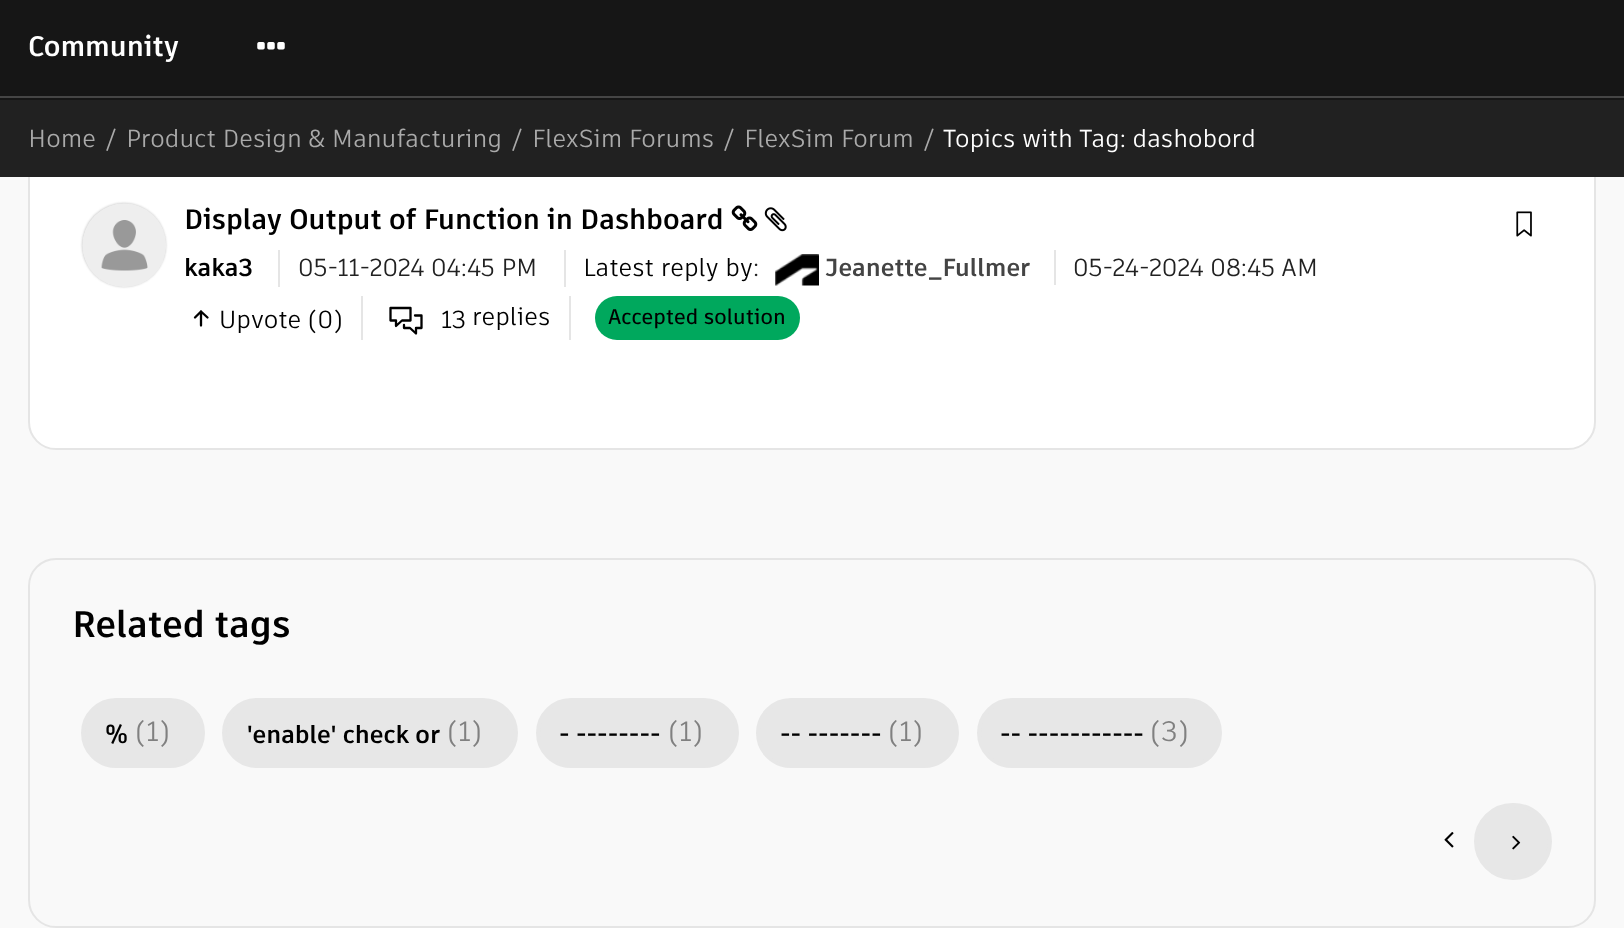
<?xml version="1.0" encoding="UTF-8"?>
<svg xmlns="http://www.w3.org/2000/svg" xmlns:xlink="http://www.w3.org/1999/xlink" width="1624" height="930">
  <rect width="100%" height="100%" fill="#f9f9f9" />
  <rect x="29" y="-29" width="1566" height="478" rx="27" fill="#ffffff" stroke="#e5e5e5" stroke-width="2" />
  <rect width="1624" height="100" fill="#161616" />
  <image x="257" y="42" width="28" height="8" xlink:href="image1.png" />
  <rect y="96" width="1624" height="2" fill="#454545" />
  <rect y="100" width="1624" height="77" fill="#212121" />
  <rect x="82" y="203" width="84" height="84" rx="42" fill="#cccccc" filter="blur(1px)" />
  <image x="82" y="203" width="84" height="84" xlink:href="image2.png" />
  <image x="731" y="205" width="27" height="26" xlink:href="image3.png" />
  <image x="764" y="207" width="23" height="25" xlink:href="image4.png" />
  <rect x="278" y="250" width="2" height="37" fill="#e5e5e5" />
  <rect x="564" y="250" width="2" height="37" fill="#e5e5e5" />
  <image x="775" y="254" width="44" height="32" xlink:href="image5.png" />
  <rect x="1054" y="250" width="2" height="35" fill="#e5e5e5" />
  <rect x="361" y="296" width="2" height="44" fill="#e5e5e5" />
  <path d="M 207.5 317.5 l -6.5 -6 m 0 0 l -6 6 m 6 -6 v 14" fill="none" stroke="#000000" stroke-width="2.3" stroke-linecap="round" stroke-linejoin="round" />
  <path d="M 415 315.5 h 6.5 v 12.5 h -5.5 v 5.5 l -6 -5.5 h -6 v -3 m -13.5 -17 v 12.5 h 5.5 v 5.5 l 6 -5.5 h 8.5 v -12.5 z" fill="none" stroke="#000000" stroke-width="2.3" stroke-linecap="round" stroke-linejoin="round" />
  <rect x="595" y="296" width="205" height="44" rx="22" fill="#00a85d" />
  <rect x="569" y="296" width="2" height="44" fill="#e5e5e5" />
  <image x="1516" y="211" width="16" height="26" xlink:href="image6.png" />
  <rect x="29" y="559" width="1566" height="368" rx="27" fill="none" stroke="#e5e5e5" stroke-width="2" />
  <rect x="83" y="700" width="120" height="66" rx="33" fill="#e7e7e7" stroke="#e7e7e7" stroke-width="4" />
  <rect x="224" y="700" width="292" height="66" rx="33" fill="#e7e7e7" stroke="#e7e7e7" stroke-width="4" />
  <rect x="538" y="700" width="199" height="66" rx="33" fill="#e7e7e7" stroke="#e7e7e7" stroke-width="4" />
  <rect x="758" y="700" width="199" height="66" rx="33" fill="#e7e7e7" stroke="#e7e7e7" stroke-width="4" />
  <rect x="979" y="700" width="241" height="66" rx="33" fill="#e7e7e7" stroke="#e7e7e7" stroke-width="4" />
  <image x="1444" y="832" width="10" height="16" xlink:href="image7.png" />
  <rect x="1476" y="805" width="74" height="73" rx="36.5" fill="#e7e7e7" stroke="#e7e7e7" stroke-width="4" />
  <image x="1512" y="835" width="9" height="15" xlink:href="image8.png" />
  <rect y="928" width="1624" height="2" fill="#ffffff" />
  <text x="28" y="56" style="font-family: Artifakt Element; font-size: 28px; font-weight: bold; fill: #ffffff">Community</text>
  <text x="28" y="147" style="font-family: Artifakt Element; font-size: 24.5px; fill: #aaaaaa">Home</text>
  <text x="106" y="147" style="font-family: Artifakt Element; font-size: 24.5px; fill: #aaaaaa">/</text>
  <text x="126" y="147" style="font-family: Artifakt Element; font-size: 24.5px; fill: #aaaaaa">Product Design &amp; Manufacturing</text>
  <text x="512" y="147" style="font-family: Artifakt Element; font-size: 24.5px; fill: #aaaaaa">/</text>
  <text x="532" y="147" style="font-family: Artifakt Element; font-size: 24.5px; fill: #aaaaaa">FlexSim Forums</text>
  <text x="724" y="147" style="font-family: Artifakt Element; font-size: 24.5px; fill: #aaaaaa">/</text>
  <text x="744" y="147" style="font-family: Artifakt Element; font-size: 24.5px; fill: #aaaaaa">FlexSim Forum</text>
  <text x="924" y="147" style="font-family: Artifakt Element; font-size: 24.5px; fill: #aaaaaa">/</text>
  <text x="943" y="147" style="font-family: Artifakt Element; font-size: 24.5px; fill: #ffffff">Topics with Tag: dashobord</text>
  <text x="184" y="229" style="font-family: Artifakt Element; font-size: 28px; font-weight: bold; fill: #000000">Display Output of Function in Dashboard</text>
  <text x="184" y="276" style="font-family: Artifakt Element; font-size: 24.5px; font-weight: bold; fill: #000000">kaka3</text>
  <text x="298" y="276" style="font-family: Artifakt Element; font-size: 24.5px; fill: #212121">05-11-2024 04:45 PM</text>
  <text x="583" y="276" style="font-family: Artifakt Element; font-size: 24.5px; fill: #000000">Latest reply by</text>
  <text x="753" y="276" style="font-family: Artifakt Element; font-size: 24.5px; fill: #212121">:</text>
  <text x="825" y="276" style="font-family: Artifakt Element; font-size: 24.5px; font-weight: bold; fill: #444444">Jeanette_Fullmer</text>
  <text x="1073" y="276" style="font-family: Artifakt Element; font-size: 24.5px; fill: #212121">05-24-2024 08:45 AM</text>
  <text x="219" y="328" style="font-family: Artifakt Element; font-size: 24.5px; fill: #000000">Upvote (0)</text>
  <text x="441" y="328" style="font-family: Artifakt Element; font-size: 24.5px; fill: #000000">13</text>
  <text x="472" y="325" style="font-family: Artifakt Element; font-size: 24.5px; fill: #000000">replies</text>
  <text x="608" y="324" style="font-family: Artifakt Element; font-size: 21px; font-weight: 600; fill: #000000">Accepted solution</text>
  <text x="72" y="637" style="font-family: Artifakt Element; font-size: 36.75px; font-weight: bold; fill: #000000">Related tags</text>
  <text x="105" y="743" style="font-family: Artifakt Element; font-size: 24.5px; font-weight: bold; fill: #000000">%</text>
  <text x="135" y="741" style="font-family: Artifakt Element; font-size: 28px; fill: #808080">(1)</text>
  <text x="247" y="743" style="font-family: Artifakt Element; font-size: 24.5px; font-weight: bold; fill: #000000">'enable' check or</text>
  <text x="447" y="741" style="font-family: Artifakt Element; font-size: 28px; fill: #808080">(1)</text>
  <text x="559" y="743" style="font-family: Artifakt Element; font-size: 24.5px; font-weight: bold; fill: #000000">- --------</text>
  <text x="668" y="741" style="font-family: Artifakt Element; font-size: 28px; fill: #808080">(1)</text>
  <text x="780" y="743" style="font-family: Artifakt Element; font-size: 24.5px; font-weight: bold; fill: #000000">-- -------</text>
  <text x="888" y="741" style="font-family: Artifakt Element; font-size: 28px; fill: #808080">(1)</text>
  <text x="1000" y="743" style="font-family: Artifakt Element; font-size: 24.5px; font-weight: bold; fill: #000000">-- -----------</text>
  <text x="1150" y="741" style="font-family: Artifakt Element; font-size: 28px; fill: #808080">(3)</text>
</svg>
